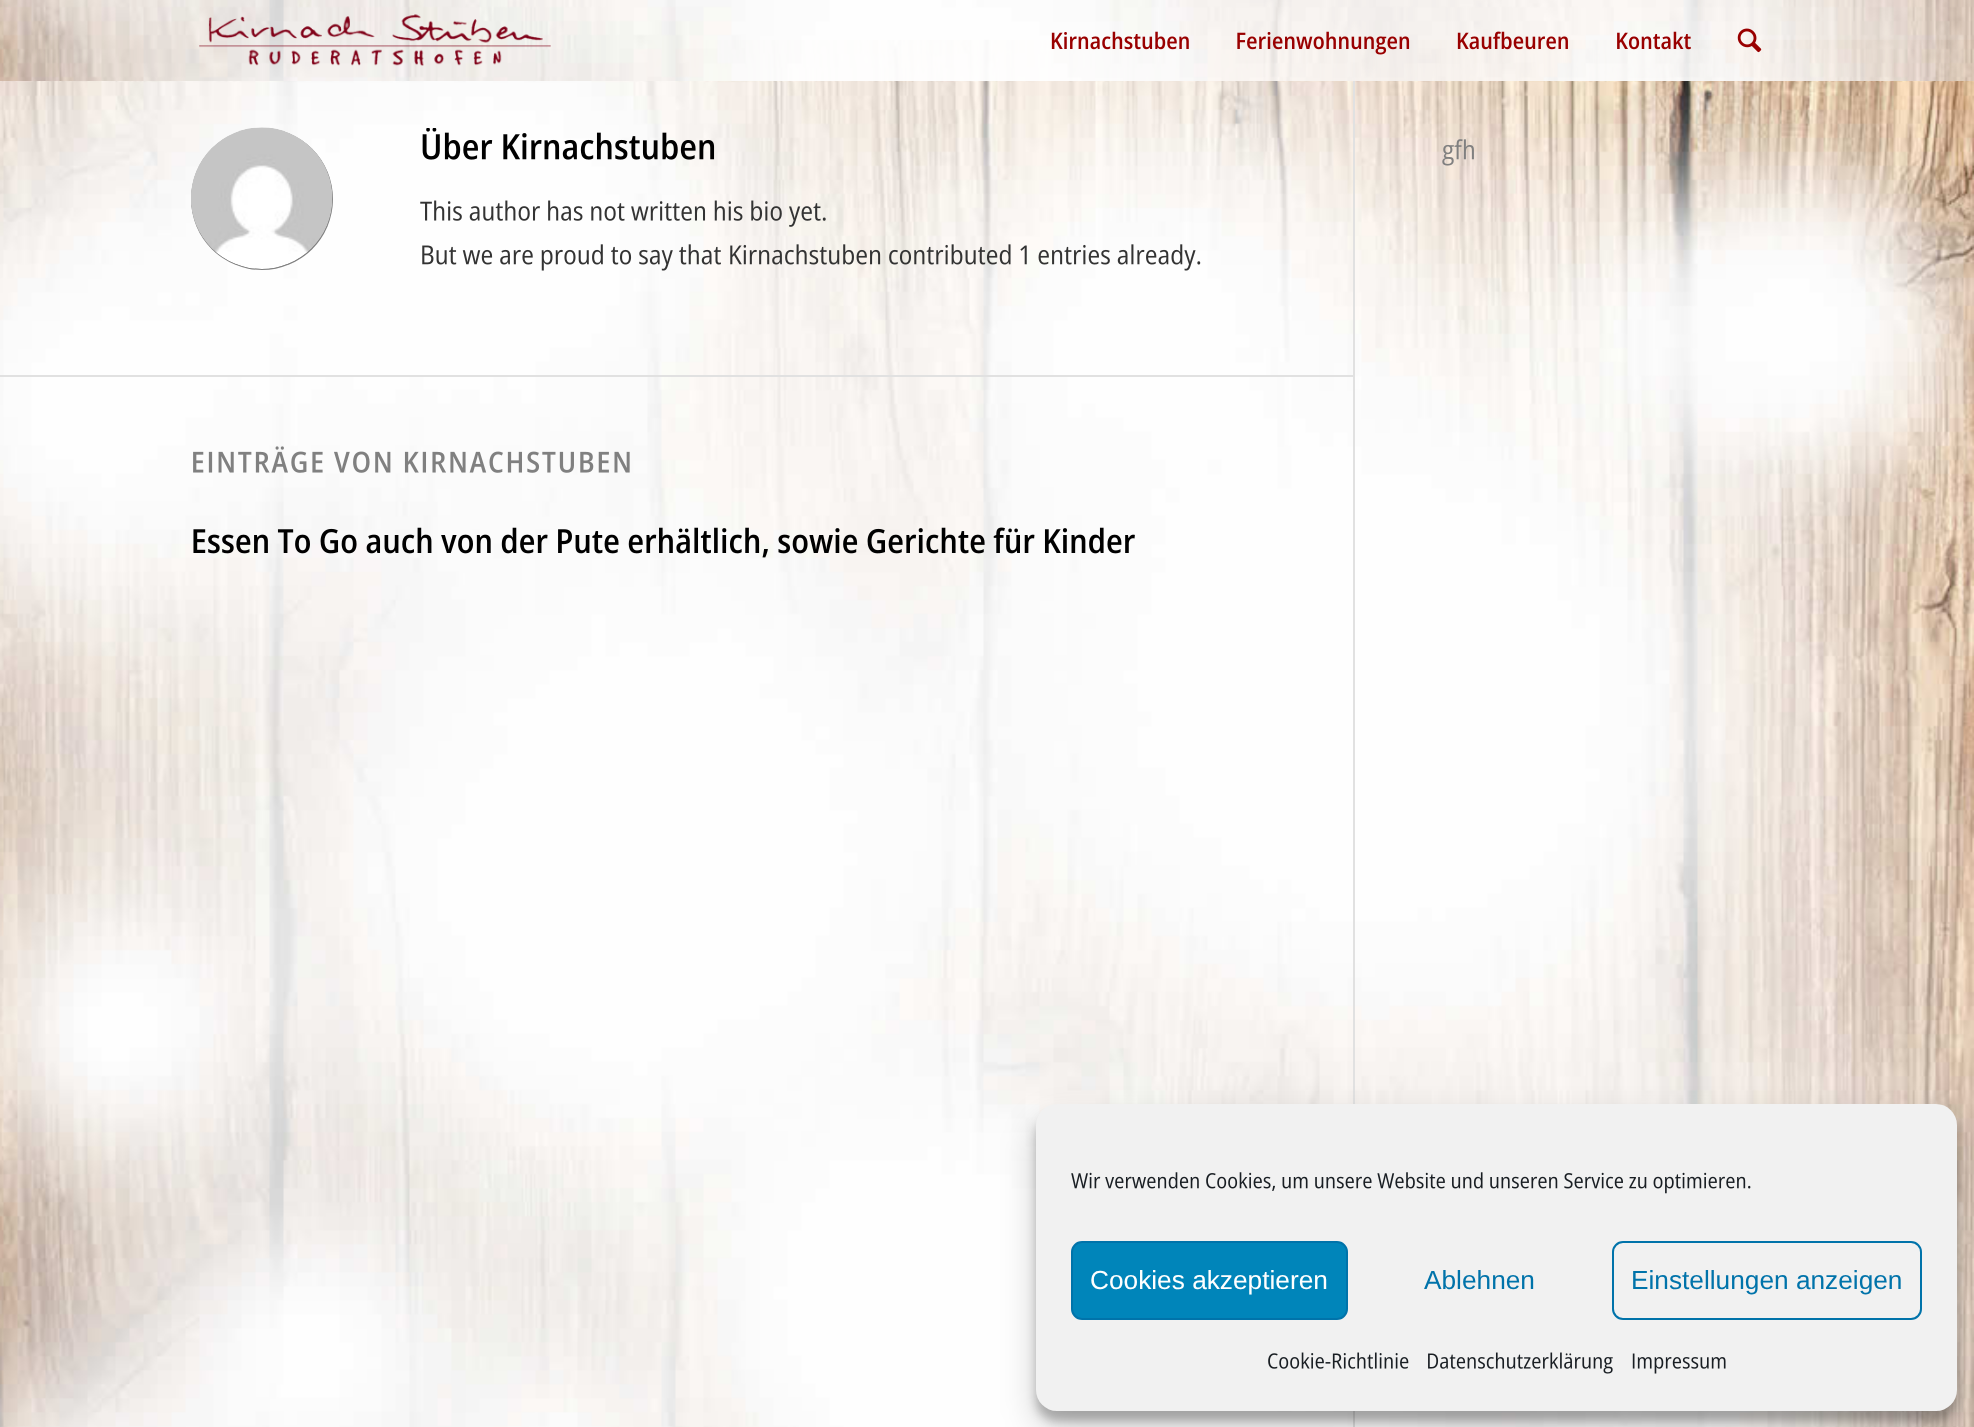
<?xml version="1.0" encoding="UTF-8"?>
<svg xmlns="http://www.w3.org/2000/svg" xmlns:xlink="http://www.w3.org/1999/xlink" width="1974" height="1427">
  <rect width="100%" height="100%" fill="#ffffff" />
  <image x="0" y="39" width="1974" height="1388" xlink:href="image8.png" />
  <rect x="1353" y="40" width="2" height="1387" fill="#e1e1e1" />
  <image x="0" y="0" width="1974" height="81" xlink:href="image1.png" />
  <image x="199" y="14" width="352" height="52" xlink:href="image2.png" />
  <image x="1051" y="31" width="138" height="19" xlink:href="image3.png" />
  <image x="1237" y="31" width="173" height="24" xlink:href="image4.png" />
  <image x="1457" y="31" width="111" height="19" xlink:href="image5.png" />
  <image x="1617" y="31" width="74" height="19" xlink:href="image6.png" />
  <image x="1737" y="28" width="25" height="25" xlink:href="image7.png" />
  <circle cx="262" cy="199" r="71" fill="#808080" />
  <image x="191" y="127" width="142" height="142" xlink:href="image9.png" />
  <image x="422" y="128" width="71" height="32" xlink:href="image10.png" />
  <image x="503" y="132" width="212" height="28" xlink:href="image11.png" />
  <image x="420" y="200" width="406" height="27" xlink:href="image12.png" />
  <image x="422" y="244" width="299" height="27" xlink:href="image13.png" />
  <image x="730" y="244" width="151" height="21" xlink:href="image14.png" />
  <image x="889" y="244" width="312" height="27" xlink:href="image15.png" />
  <rect y="375" width="1353" height="2" fill="#e1e1e1" />
  <image x="193" y="446" width="437" height="27" xlink:href="image16.png" />
  <image x="193" y="527" width="942" height="31" xlink:href="image17.png" />
  <image x="1442" y="139" width="32" height="27" xlink:href="image18.png" />
  <rect x="1036" y="1115" width="921" height="306" rx="21" fill="#000000" fill-opacity="0.23" filter="blur(5px)" />
  <rect x="1036" y="1122" width="921" height="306" rx="21" fill="#000000" fill-opacity="0.19" filter="blur(17.5px)" />
  <rect x="1036" y="1104" width="921" height="307" rx="21" fill="#f1f1f1" />
  <image x="1071" y="1172" width="680" height="22" xlink:href="image19.png" />
  <rect x="1072" y="1242" width="275" height="77" rx="10" fill="#0085ba" stroke="#0073aa" stroke-width="2" />
  <rect x="1613" y="1242" width="308" height="77" rx="10" fill="none" stroke="#0073aa" stroke-width="2" />
  <image x="1268" y="1352" width="141" height="17" xlink:href="image20.png" />
  <image x="1428" y="1352" width="185" height="22" xlink:href="image21.png" />
  <image x="1632" y="1353" width="94" height="21" xlink:href="image22.png" />
  <text x="1090" y="1289" style="font-family: Liberation Sans; font-size: 26.25px; fill: #ffffff">Cookies akzeptieren</text>
  <text x="1424" y="1289" style="font-family: Liberation Sans; font-size: 26.25px; fill: #0073aa">Ablehnen</text>
  <text x="1631" y="1289" style="font-family: Liberation Sans; font-size: 26.25px; fill: #0073aa">Einstellungen anzeigen</text>
</svg>
